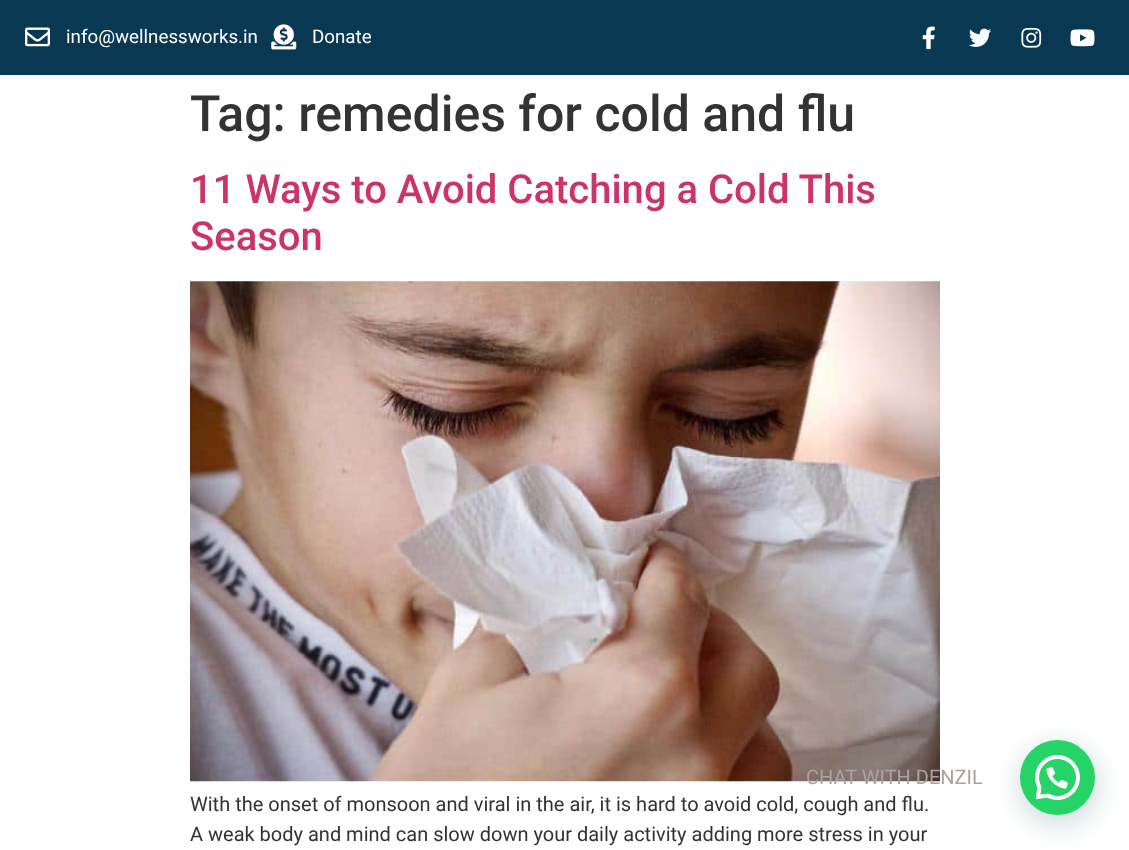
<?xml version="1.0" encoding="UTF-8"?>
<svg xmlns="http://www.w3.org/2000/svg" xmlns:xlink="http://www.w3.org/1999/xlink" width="1129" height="850">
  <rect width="100%" height="100%" fill="#ffffff" />
  <rect width="1129" height="75" fill="#093852" />
  <image x="25" y="27" width="25" height="20" xlink:href="image1.png" />
  <image x="271" y="24" width="26" height="26" xlink:href="image2.png" />
  <image x="922" y="26" width="13" height="24" xlink:href="image3.png" />
  <image x="968" y="28" width="23" height="19" xlink:href="image4.png" />
  <image x="1021" y="27" width="21" height="21" xlink:href="image5.png" />
  <image x="1070" y="29" width="25" height="18" xlink:href="image6.png" />
  <image x="190" y="281" width="750" height="501" xlink:href="image7.png" />
  <rect x="1021" y="748" width="75" height="75" rx="37.5" fill="#075e54" fill-opacity="0.24" filter="blur(15px)" />
  <circle cx="1057.5" cy="777.5" r="37.5" fill="#25d366" />
  <image x="1035" y="755" width="45" height="45" xlink:href="image8.png" />
  <text x="66" y="43" style="font-family: Roboto; font-size: 18.75px; fill: #ffffff">info@wellnessworks.in</text>
  <text x="312" y="43" style="font-family: Roboto; font-size: 18.75px; fill: #ffffff">Donate</text>
  <text x="190" y="131" style="font-family: Roboto; font-size: 50px; font-weight: 500; fill: #333333">Tag: remedies for cold and flu</text>
  <text x="190" y="203" style="font-family: Roboto; font-size: 40px; font-weight: 500; fill: #cc3366">11 Ways to Avoid Catching a Cold This</text>
  <text x="190" y="250" style="font-family: Roboto; font-size: 40px; font-weight: 500; fill: #cc3366">Season</text>
  <text x="190" y="811" style="font-family: Roboto; font-size: 20px; fill: #333333">With the onset of monsoon and viral in the air, it is hard to avoid cold, cough and flu.</text>
  <text x="190" y="841" style="font-family: Roboto; font-size: 20px; fill: #333333">A weak body and mind can slow down your daily activity adding more stress in your</text>
  <text x="806" y="784" style="font-family: Roboto; font-size: 20px; fill: #aba19e">CHAT WITH DENZIL</text>
</svg>
